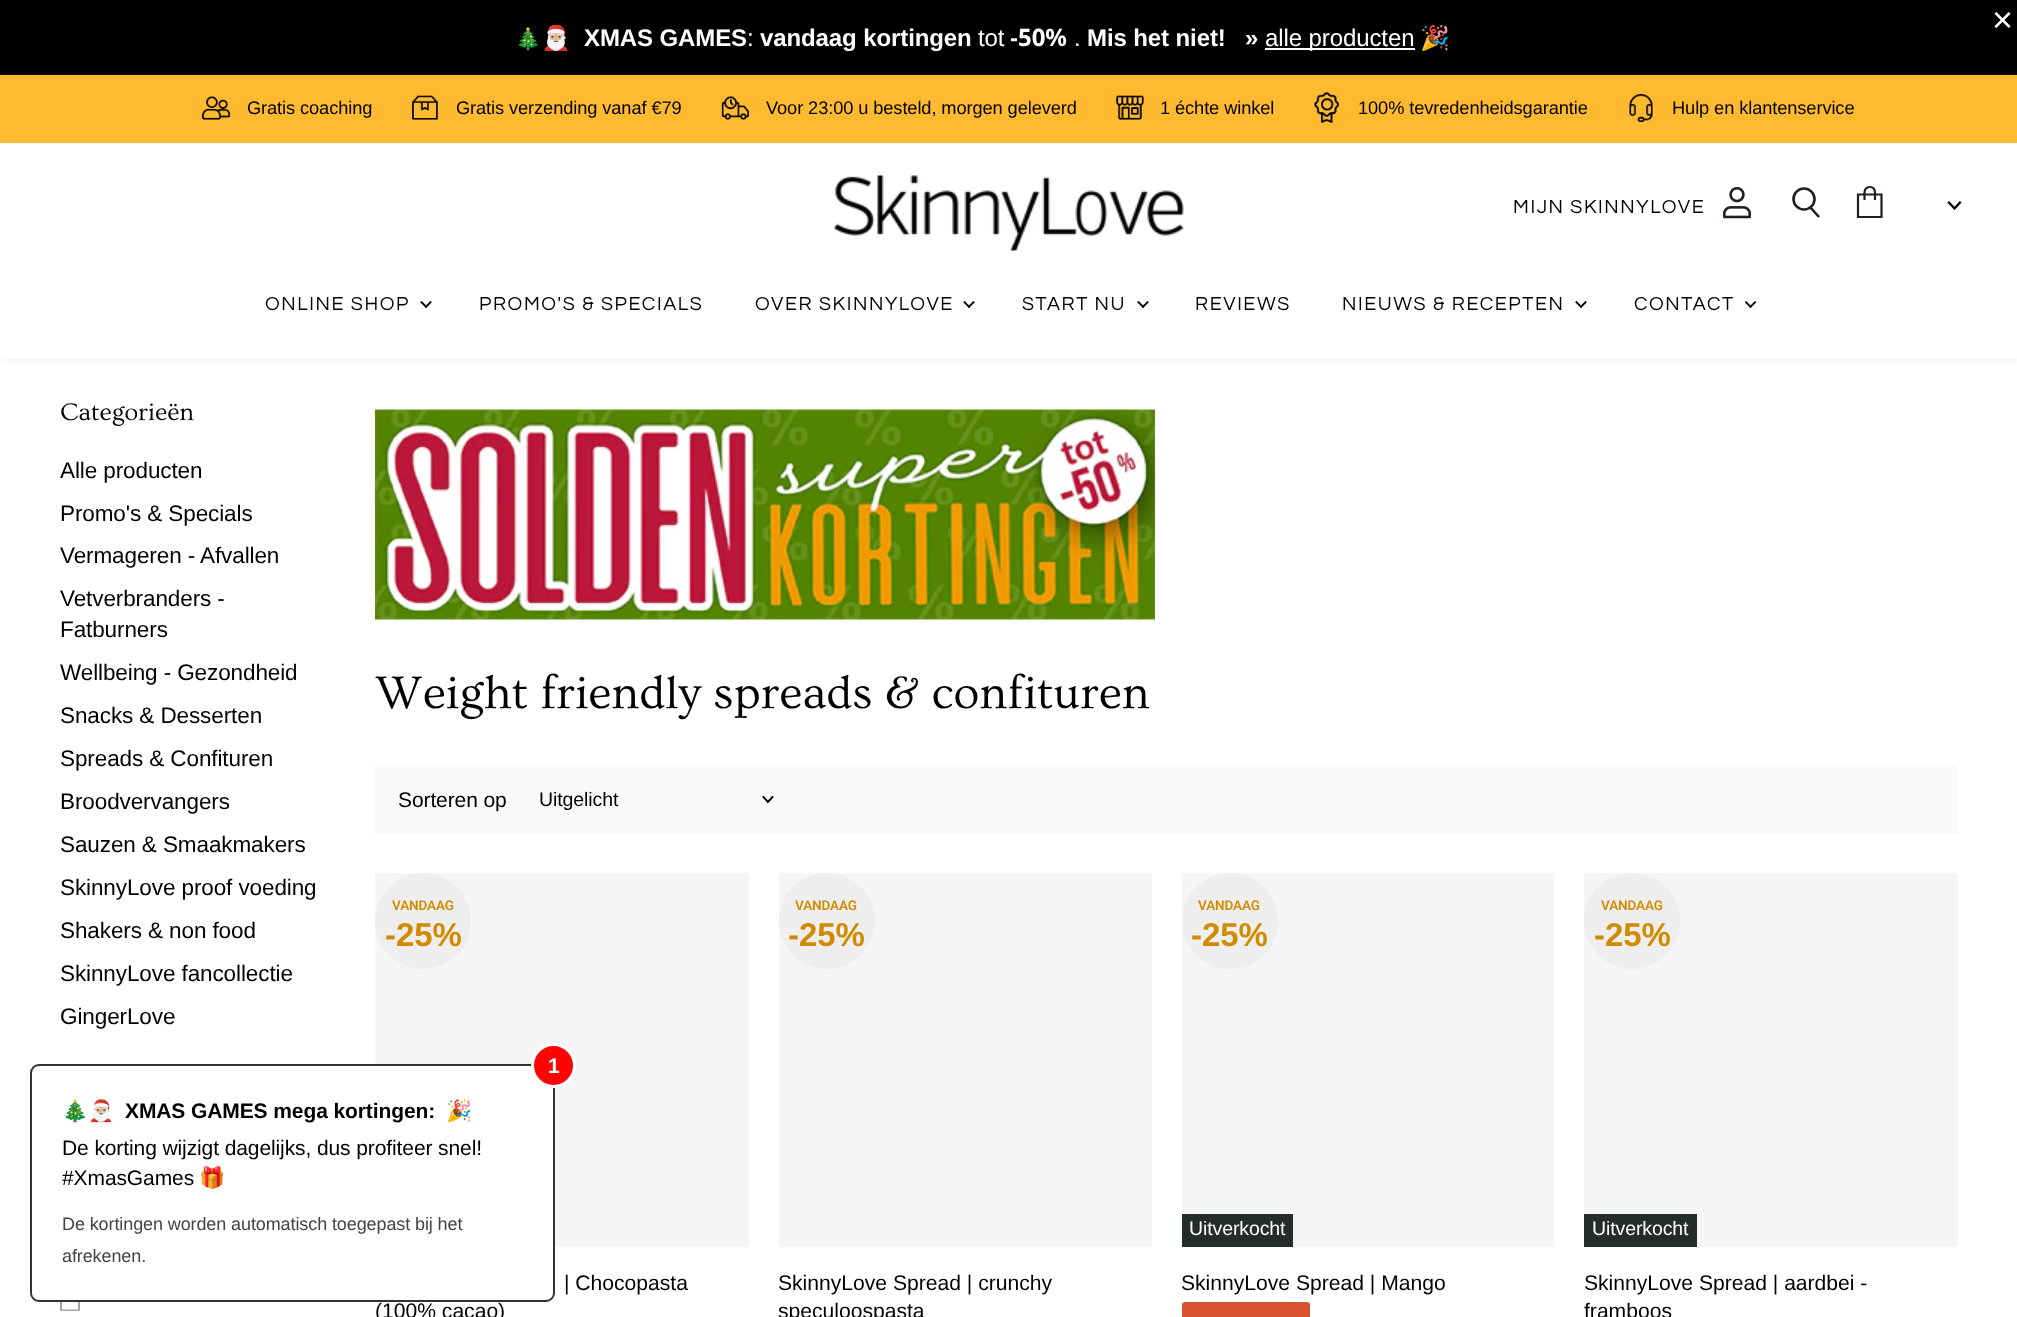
<?xml version="1.0" encoding="UTF-8"?>
<svg xmlns="http://www.w3.org/2000/svg" xmlns:xlink="http://www.w3.org/1999/xlink" width="2017" height="1317">
  <rect width="100%" height="100%" fill="#ffffff" />
  <rect width="2017" height="75" fill="#000000" />
  <rect x="1265" y="48" width="150" height="2" fill="#ffffff" />
  <rect y="75" width="2017" height="68" fill="#ffba2f" />
  <image x="202" y="96" width="28" height="24" xlink:href="image1.png" />
  <image x="412" y="95" width="26" height="25" xlink:href="image2.png" />
  <image x="721" y="96" width="28" height="24" xlink:href="image3.png" />
  <image x="1116" y="95" width="28" height="25" xlink:href="image4.png" />
  <image x="1314" y="92" width="25" height="31" xlink:href="image5.png" />
  <image x="1629" y="94" width="24" height="28" xlink:href="image6.png" />
  <rect y="144" width="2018" height="216" fill="#bac0be" fill-opacity="0.25" filter="blur(3px)" />
  <rect y="143" width="2017" height="216" fill="#ffffff" />
  <image x="834" y="175" width="350" height="76" xlink:href="image7.png" />
  <image x="1722" y="187" width="30" height="32" xlink:href="image8.png" />
  <path d="M 1819 217 l -9 -10" fill="none" stroke="#1b2120" stroke-width="2.6" />
  <circle cx="1804" cy="199" r="10.5" fill="none" stroke="#1b2120" stroke-width="2.6" />
  <path d="M 1858 194.5 h 23.5 v 22.5 h -23.5 z m 17 5.5 v -7 c 0 -4.5 -2.5 -6 -5 -6 c -3 0 -5.5 1.5 -5.5 6 v 7" fill="none" stroke="#1b2120" stroke-width="2.2" />
  <path d="M 1954.5 208.5 l 5.5 -6 m -5.5 6 l -5.5 -6" fill="none" stroke="#000000" stroke-width="2.3" stroke-linecap="square" />
  <image x="420" y="301" width="12" height="7" xlink:href="image9.png" />
  <image x="963" y="301" width="12" height="7" xlink:href="image9.png" />
  <image x="1137" y="301" width="12" height="7" xlink:href="image9.png" />
  <image x="1575" y="301" width="12" height="7" xlink:href="image9.png" />
  <image x="1745" y="301" width="12" height="7" xlink:href="image10.png" />
  <rect x="61" y="1293" width="18" height="17" rx="0.5" fill="none" stroke="#a1a6a4" stroke-width="2" />
  <image x="62" y="1302" width="16" height="8" xlink:href="image11.png" />
  <image x="375" y="409" width="780" height="211" xlink:href="image12.png" />
  <rect x="375" y="765" width="1583" height="69" fill="#faf9f9" />
  <path d="M 768 802 l 4.5 -5 m -4.5 5 l -4.5 -5" fill="none" stroke="#000000" stroke-width="1.9" stroke-linecap="square" />
  <rect x="375" y="873" width="374" height="374" fill="#f5f5f5" />
  <circle cx="423" cy="921" r="48" fill="#eeeeee" />
  <rect x="779" y="873" width="373" height="374" fill="#f5f5f5" />
  <circle cx="827" cy="921" r="48" fill="#eeeeee" />
  <rect x="1182" y="873" width="372" height="374" fill="#f5f5f5" />
  <circle cx="1230" cy="921" r="48" fill="#eeeeee" />
  <rect x="1182" y="1214" width="111" height="33" fill="#252d2b" />
  <rect x="1183" y="1303" width="126" height="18" rx="2" fill="#d8532f" stroke="#d8532f" stroke-width="2" />
  <rect x="1584" y="873" width="374" height="374" fill="#f5f5f5" />
  <circle cx="1632" cy="921" r="48" fill="#eeeeee" />
  <rect x="1584" y="1214" width="113" height="33" fill="#252d2b" />
  <rect x="31" y="1065" width="523" height="236" rx="8" fill="#ffffff" stroke="#323232" stroke-width="2" />
  <circle cx="553.5" cy="1065.5" r="21" fill="#ff0404" stroke="#ffffff" stroke-width="3" />
  <text x="1992" y="32" style="font-family: Liberation Sans; font-size: 36px; letter-spacing: -0.1px; fill: #ffffff">×</text>
  <text x="515" y="46" style="font-family: Noto Color Emoji; font-size: 21px; letter-spacing: -0.1px; fill: #4d5156">🎄</text>
  <text x="541" y="46" style="font-family: Noto Color Emoji; font-size: 24px; letter-spacing: -0.1px; fill: #ffffff">🎅🏼</text>
  <text x="584" y="46" style="font-family: Liberation Sans; font-size: 24px; font-weight: bold; letter-spacing: -0.1px; fill: #ffffff">XMAS GAMES</text>
  <text x="747" y="46" style="font-family: Liberation Sans; font-size: 24px; letter-spacing: -0.1px; fill: #ffffff">:</text>
  <text x="760" y="46" style="font-family: Liberation Sans; font-size: 24px; font-weight: bold; letter-spacing: -0.1px; fill: #ffffff">vandaag kortingen</text>
  <text x="978" y="46" style="font-family: Liberation Sans; font-size: 24px; letter-spacing: -0.1px; fill: #ffffff">tot</text>
  <text x="1010" y="46" style="font-family: Liberation Sans; font-size: 24px; font-weight: bold; letter-spacing: -0.1px; fill: #ffffff">-</text>
  <text x="1018" y="46" style="font-family: Noto Sans; font-size: 24px; font-weight: bold; letter-spacing: -0.1px; fill: #ffffff">50%</text>
  <text x="1087" y="46" style="font-family: Liberation Sans; font-size: 24px; font-weight: bold; letter-spacing: -0.1px; fill: #ffffff">Mis het niet!</text>
  <text x="1245" y="46" style="font-family: Liberation Sans; font-size: 24px; font-weight: bold; letter-spacing: -0.1px; fill: #ffffff">»</text>
  <text x="1265" y="46" style="font-family: Liberation Sans; font-size: 24px; letter-spacing: -0.1px; fill: #ffffff">alle producten</text>
  <text x="1420" y="46" style="font-family: Noto Color Emoji; font-size: 24px; letter-spacing: -0.1px; fill: #ffffff">🎉</text>
  <text x="1074" y="46" style="font-family: Liberation Sans; font-size: 24px; letter-spacing: -0.1px; fill: #ffffff">.</text>
  <text x="247" y="114" style="font-family: Liberation Sans; font-size: 18.25px; letter-spacing: -0.1px; fill: #000000">Gratis coaching</text>
  <text x="456" y="114" style="font-family: Liberation Sans; font-size: 18.25px; letter-spacing: -0.1px; fill: #000000">Gratis verzending vanaf €79</text>
  <text x="766" y="114" style="font-family: Liberation Sans; font-size: 18.25px; letter-spacing: -0.1px; fill: #000000">Voor 23:00 u besteld, morgen geleverd</text>
  <text x="1160" y="114" style="font-family: Liberation Sans; font-size: 18.25px; letter-spacing: -0.1px; fill: #000000">1 échte winkel</text>
  <text x="1358" y="114" style="font-family: Liberation Sans; font-size: 18.25px; letter-spacing: -0.1px; fill: #000000">100% tevredenheidsgarantie</text>
  <text x="1672" y="114" style="font-family: Liberation Sans; font-size: 18.25px; letter-spacing: -0.1px; fill: #000000">Hulp en klantenservice</text>
  <text x="1513" y="213" style="font-family: Questrial; font-size: 19.6px; letter-spacing: 1.6px; fill: #000000">MIJN SKINNYLOVE</text>
  <text x="265" y="310" style="font-family: Questrial; font-size: 19.6px; letter-spacing: 1.6px; fill: #000000">ONLINE SHOP</text>
  <text x="479" y="310" style="font-family: Questrial; font-size: 19.6px; letter-spacing: 1.6px; fill: #000000">PROMO'S &amp; SPECIALS</text>
  <text x="755" y="310" style="font-family: Questrial; font-size: 19.6px; letter-spacing: 1.6px; fill: #000000">OVER SKINNYLOVE</text>
  <text x="1022" y="310" style="font-family: Questrial; font-size: 19.6px; letter-spacing: 1.6px; fill: #000000">START NU</text>
  <text x="1195" y="310" style="font-family: Questrial; font-size: 19.6px; letter-spacing: 1.6px; fill: #000000">REVIEWS</text>
  <text x="1342" y="310" style="font-family: Questrial; font-size: 19.6px; letter-spacing: 1.6px; fill: #000000">NIEUWS &amp; RECEPTEN</text>
  <text x="1634" y="310" style="font-family: Questrial; font-size: 19.6px; letter-spacing: 1.6px; fill: #000000">CONTACT</text>
  <text x="60" y="420" style="font-family: Ovo; font-size: 25.25px; fill: #000000">Categorieën</text>
  <text x="60" y="478" style="font-family: Liberation Sans; font-size: 22.5px; letter-spacing: -0.1px; fill: #000000">Alle producten</text>
  <text x="60" y="521" style="font-family: Liberation Sans; font-size: 22.5px; letter-spacing: -0.1px; fill: #000000">Promo's &amp; Specials</text>
  <text x="60" y="563" style="font-family: Liberation Sans; font-size: 22.5px; letter-spacing: -0.1px; fill: #000000">Vermageren - Afvallen</text>
  <text x="60" y="606" style="font-family: Liberation Sans; font-size: 22.5px; letter-spacing: -0.1px; fill: #000000">Vetverbranders -</text>
  <text x="60" y="637" style="font-family: Liberation Sans; font-size: 22.5px; letter-spacing: -0.1px; fill: #000000">Fatburners</text>
  <text x="60" y="680" style="font-family: Liberation Sans; font-size: 22.5px; letter-spacing: -0.1px; fill: #000000">Wellbeing - Gezondheid</text>
  <text x="60" y="723" style="font-family: Liberation Sans; font-size: 22.5px; letter-spacing: -0.1px; fill: #000000">Snacks &amp; Desserten</text>
  <text x="60" y="766" style="font-family: Liberation Sans; font-size: 22.5px; letter-spacing: -0.1px; fill: #000000">Spreads &amp; Confituren</text>
  <text x="60" y="809" style="font-family: Liberation Sans; font-size: 22.5px; letter-spacing: -0.1px; fill: #000000">Broodvervangers</text>
  <text x="60" y="852" style="font-family: Liberation Sans; font-size: 22.5px; letter-spacing: -0.1px; fill: #000000">Sauzen &amp; Smaakmakers</text>
  <text x="60" y="895" style="font-family: Liberation Sans; font-size: 22.5px; letter-spacing: -0.1px; fill: #000000">SkinnyLove proof voeding</text>
  <text x="60" y="938" style="font-family: Liberation Sans; font-size: 22.5px; letter-spacing: -0.1px; fill: #000000">Shakers &amp; non food</text>
  <text x="60" y="981" style="font-family: Liberation Sans; font-size: 22.5px; letter-spacing: -0.1px; fill: #000000">SkinnyLove fancollectie</text>
  <text x="60" y="1024" style="font-family: Liberation Sans; font-size: 22.5px; letter-spacing: -0.1px; fill: #000000">GingerLove</text>
  <text x="375" y="708" style="font-family: Ovo; font-size: 47.75px; fill: #000000">Weight friendly spreads &amp; confituren</text>
  <text x="398" y="807" style="font-family: Liberation Sans; font-size: 21px; letter-spacing: -0.1px; fill: #000000">Sorteren op</text>
  <text x="539" y="806" style="font-family: Liberation Sans; font-size: 19.5px; letter-spacing: -0.1px; fill: #000000">Uitgelicht</text>
  <text x="392" y="910" style="font-family: Roboto; font-size: 13.5px; font-weight: 600; letter-spacing: -0.1px; fill: #d18b00">VANDAAG</text>
  <text x="385" y="946" style="font-family: Liberation Sans; font-size: 33px; font-weight: bold; letter-spacing: -0.1px; fill: #d18b00">-25%</text>
  <text x="564" y="1290" style="font-family: Liberation Sans; font-size: 21.1px; fill: #000000">| Chocopasta</text>
  <text x="375" y="1318" style="font-family: Liberation Sans; font-size: 21.1px; fill: #000000">(100% cacao)</text>
  <text x="795" y="910" style="font-family: Roboto; font-size: 13.5px; font-weight: 600; letter-spacing: -0.1px; fill: #d18b00">VANDAAG</text>
  <text x="788" y="946" style="font-family: Liberation Sans; font-size: 33px; font-weight: bold; letter-spacing: -0.1px; fill: #d18b00">-25%</text>
  <text x="778" y="1290" style="font-family: Liberation Sans; font-size: 21.1px; fill: #000000">SkinnyLove Spread | crunchy</text>
  <text x="778" y="1318" style="font-family: Liberation Sans; font-size: 21.1px; fill: #000000">speculoospasta</text>
  <text x="1198" y="910" style="font-family: Roboto; font-size: 13.5px; font-weight: 600; letter-spacing: -0.1px; fill: #d18b00">VANDAAG</text>
  <text x="1191" y="946" style="font-family: Liberation Sans; font-size: 33px; font-weight: bold; letter-spacing: -0.1px; fill: #d18b00">-25%</text>
  <text x="1189" y="1235" style="font-family: Liberation Sans; font-size: 19.5px; letter-spacing: -0.1px; fill: #ffffff">Uitverkocht</text>
  <text x="1181" y="1290" style="font-family: Liberation Sans; font-size: 21.1px; fill: #000000">SkinnyLove Spread | Mango</text>
  <text x="1601" y="910" style="font-family: Roboto; font-size: 13.5px; font-weight: 600; letter-spacing: -0.1px; fill: #d18b00">VANDAAG</text>
  <text x="1594" y="946" style="font-family: Liberation Sans; font-size: 33px; font-weight: bold; letter-spacing: -0.1px; fill: #d18b00">-25%</text>
  <text x="1592" y="1235" style="font-family: Liberation Sans; font-size: 19.5px; letter-spacing: -0.1px; fill: #ffffff">Uitverkocht</text>
  <text x="1584" y="1290" style="font-family: Liberation Sans; font-size: 21.1px; fill: #000000">SkinnyLove Spread | aardbei -</text>
  <text x="1584" y="1318" style="font-family: Liberation Sans; font-size: 21.1px; fill: #000000">framboos</text>
  <text x="548" y="1073" style="font-family: Liberation Sans; font-size: 21px; font-weight: bold; letter-spacing: -0.1px; fill: #ffffff">1</text>
  <text x="62" y="1118" style="font-family: Noto Color Emoji; font-size: 21px; letter-spacing: -0.1px; fill: #4d5156">🎄🎅🏼</text>
  <text x="125" y="1118" style="font-family: Liberation Sans; font-size: 21px; font-weight: bold; letter-spacing: -0.1px; fill: #000000">XMAS GAMES mega kortingen:</text>
  <text x="446" y="1118" style="font-family: Noto Color Emoji; font-size: 21px; letter-spacing: -0.1px; fill: #000000">🎉</text>
  <text x="62" y="1155" style="font-family: Liberation Sans; font-size: 21px; letter-spacing: -0.1px; fill: #000000">De korting wijzigt dagelijks, dus profiteer snel!</text>
  <text x="62" y="1185" style="font-family: Liberation Sans; font-size: 21px; letter-spacing: -0.1px; fill: #000000">#XmasGames</text>
  <text x="199" y="1185" style="font-family: Noto Color Emoji; font-size: 21px; letter-spacing: -0.1px; fill: #4d5156">🎁</text>
  <text x="62" y="1230" style="font-family: Liberation Sans; font-size: 18px; letter-spacing: -0.1px; fill: #484242">De kortingen worden automatisch toegepast bij het</text>
  <text x="62" y="1262" style="font-family: Liberation Sans; font-size: 18px; letter-spacing: -0.1px; fill: #484242">afrekenen.</text>
</svg>
